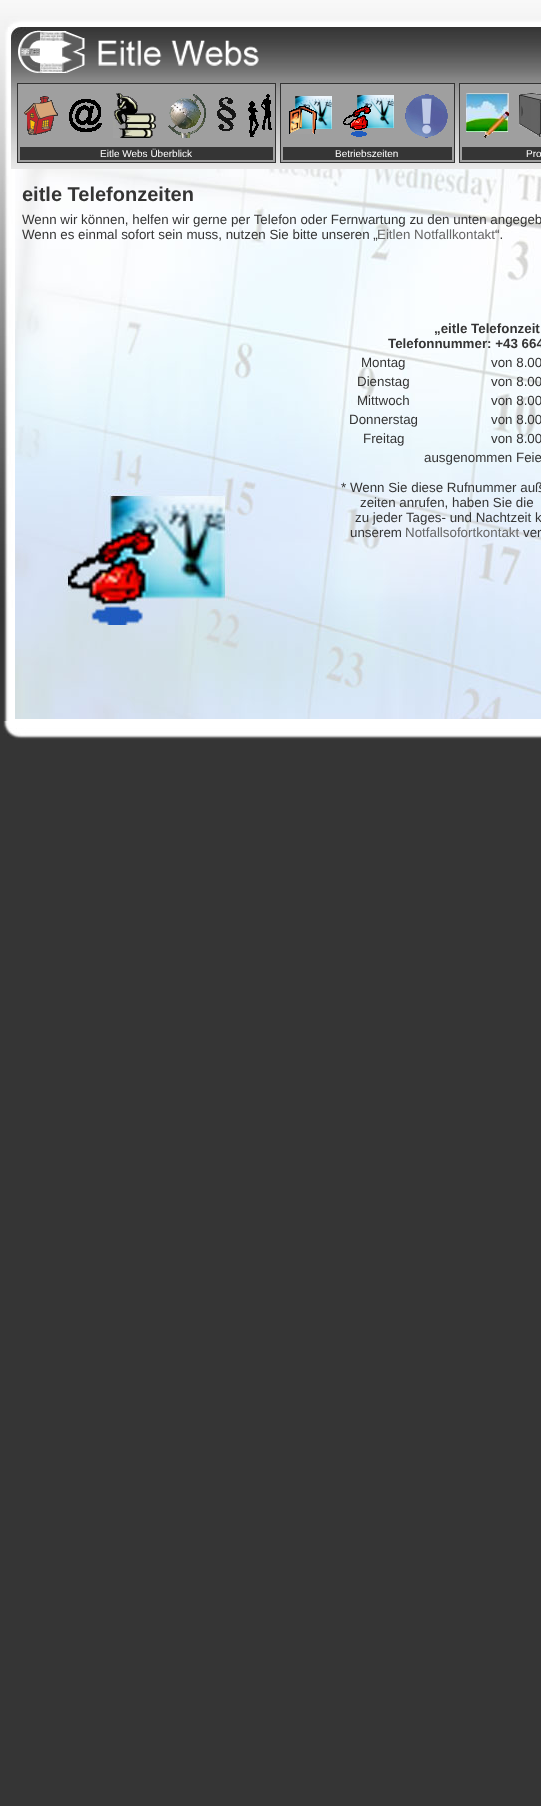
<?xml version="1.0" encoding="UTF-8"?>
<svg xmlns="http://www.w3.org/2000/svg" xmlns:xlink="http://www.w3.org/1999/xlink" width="541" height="1806">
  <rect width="100%" height="100%" fill="#353535" />
  <image x="0" y="0" width="541" height="721" xlink:href="image1.png" />
  <rect x="8" y="27" width="2" height="4" fill="#ffffff" />
  <image x="11" y="27" width="530" height="142" xlink:href="image2.png" />
  <image x="18" y="30" width="241" height="43" xlink:href="image3.png" />
  <rect x="17.5" y="83.5" width="258" height="79" fill="#9f9f9f" stroke="#333333" />
  <image x="24" y="96" width="34" height="39" xlink:href="image4.png" />
  <image x="69" y="99" width="33" height="33" xlink:href="image5.png" />
  <image x="113" y="93" width="43" height="45" xlink:href="image6.png" />
  <image x="168" y="94" width="38" height="44" xlink:href="image7.png" />
  <image x="217" y="97" width="19" height="34" xlink:href="image8.png" />
  <image x="248" y="94" width="24" height="43" xlink:href="image9.png" />
  <rect x="20" y="147" width="253" height="13" fill="#353535" />
  <rect x="280.5" y="83.5" width="174" height="79" fill="#9f9f9f" stroke="#333333" />
  <image x="289" y="96" width="43" height="38" xlink:href="image10.png" />
  <image x="343" y="95" width="51" height="42" xlink:href="image11.png" />
  <image x="405" y="94" width="43" height="44" xlink:href="image12.png" />
  <rect x="283" y="147" width="169" height="13" fill="#353535" />
  <rect x="459.5" y="83.5" width="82" height="79" fill="#9f9f9f" stroke="#333333" />
  <image x="466" y="93" width="43" height="45" xlink:href="image13.png" />
  <image x="519" y="93" width="22" height="45" xlink:href="image14.png" />
  <rect x="462" y="147" width="79" height="13" fill="#353535" />
  <image x="15" y="169" width="526" height="550" xlink:href="image15.png" />
  <image x="3" y="721" width="538" height="19" xlink:href="image16.png" />
  <text x="100" y="157" style="font-family: Liberation Sans; font-size: 10px; fill: #ffffff">Eitle Webs Überblick</text>
  <text x="335" y="157" style="font-family: Liberation Sans; font-size: 10px; fill: #ffffff">Betriebszeiten</text>
  <text x="526" y="157" style="font-family: Liberation Sans; font-size: 10px; fill: #ffffff">Pro</text>
  <text x="22" y="201" style="font-family: Liberation Sans; font-size: 20px; font-weight: bold; fill: #353535">eitle Telefonzeiten</text>
  <text x="22" y="224" style="font-family: Liberation Sans; font-size: 13.35px; fill: #353535">Wenn wir können, helfen wir gerne per Telefon oder Fernwartung zu den unten angegeb</text>
  <text x="22" y="239" style="font-family: Liberation Sans; font-size: 13.35px; fill: #353535">Wenn es einmal sofort sein muss, nutzen Sie bitte unseren „</text>
  <text x="377" y="239" style="font-family: Liberation Sans; font-size: 13.35px; fill: #666666">Eitlen Notfallkontakt</text>
  <text x="495" y="239" style="font-family: Liberation Sans; font-size: 13.35px; fill: #353535">“.</text>
  <text x="434" y="333" style="font-family: Liberation Sans; font-size: 13.35px; font-weight: bold; fill: #353535">„eitle Telefonzeit</text>
  <text x="388" y="348" style="font-family: Liberation Sans; font-size: 13.35px; font-weight: bold; fill: #353535">Telefonnummer: +43 664</text>
  <text x="361" y="367" style="font-family: Liberation Sans; font-size: 13.35px; fill: #353535">Montag</text>
  <text x="491" y="367" style="font-family: Liberation Sans; font-size: 13.35px; fill: #353535">von 8.00</text>
  <text x="357" y="386" style="font-family: Liberation Sans; font-size: 13.35px; fill: #353535">Dienstag</text>
  <text x="491" y="386" style="font-family: Liberation Sans; font-size: 13.35px; fill: #353535">von 8.00</text>
  <text x="357" y="405" style="font-family: Liberation Sans; font-size: 13.35px; fill: #353535">Mittwoch</text>
  <text x="491" y="405" style="font-family: Liberation Sans; font-size: 13.35px; fill: #353535">von 8.00</text>
  <text x="349" y="424" style="font-family: Liberation Sans; font-size: 13.35px; fill: #353535">Donnerstag</text>
  <text x="491" y="424" style="font-family: Liberation Sans; font-size: 13.35px; fill: #353535">von 8.00</text>
  <text x="363" y="443" style="font-family: Liberation Sans; font-size: 13.35px; fill: #353535">Freitag</text>
  <text x="491" y="443" style="font-family: Liberation Sans; font-size: 13.35px; fill: #353535">von 8.00</text>
  <text x="424" y="462" style="font-family: Liberation Sans; font-size: 13.35px; fill: #353535">ausgenommen Feie</text>
  <text x="341" y="492" style="font-family: Liberation Sans; font-size: 13.35px; fill: #353535">* Wenn Sie diese Rufnummer auß</text>
  <text x="360" y="507" style="font-family: Liberation Sans; font-size: 13.35px; fill: #353535">zeiten anrufen, haben Sie die</text>
  <text x="355" y="522" style="font-family: Liberation Sans; font-size: 13.35px; fill: #353535">zu jeder Tages- und Nachtzeit k</text>
  <text x="350" y="537" style="font-family: Liberation Sans; font-size: 13.35px; fill: #353535">unserem</text>
  <text x="405" y="537" style="font-family: Liberation Sans; font-size: 13.35px; fill: #666666">Notfallsofortkontakt</text>
  <text x="523" y="537" style="font-family: Liberation Sans; font-size: 13.35px; fill: #353535">ver</text>
</svg>
